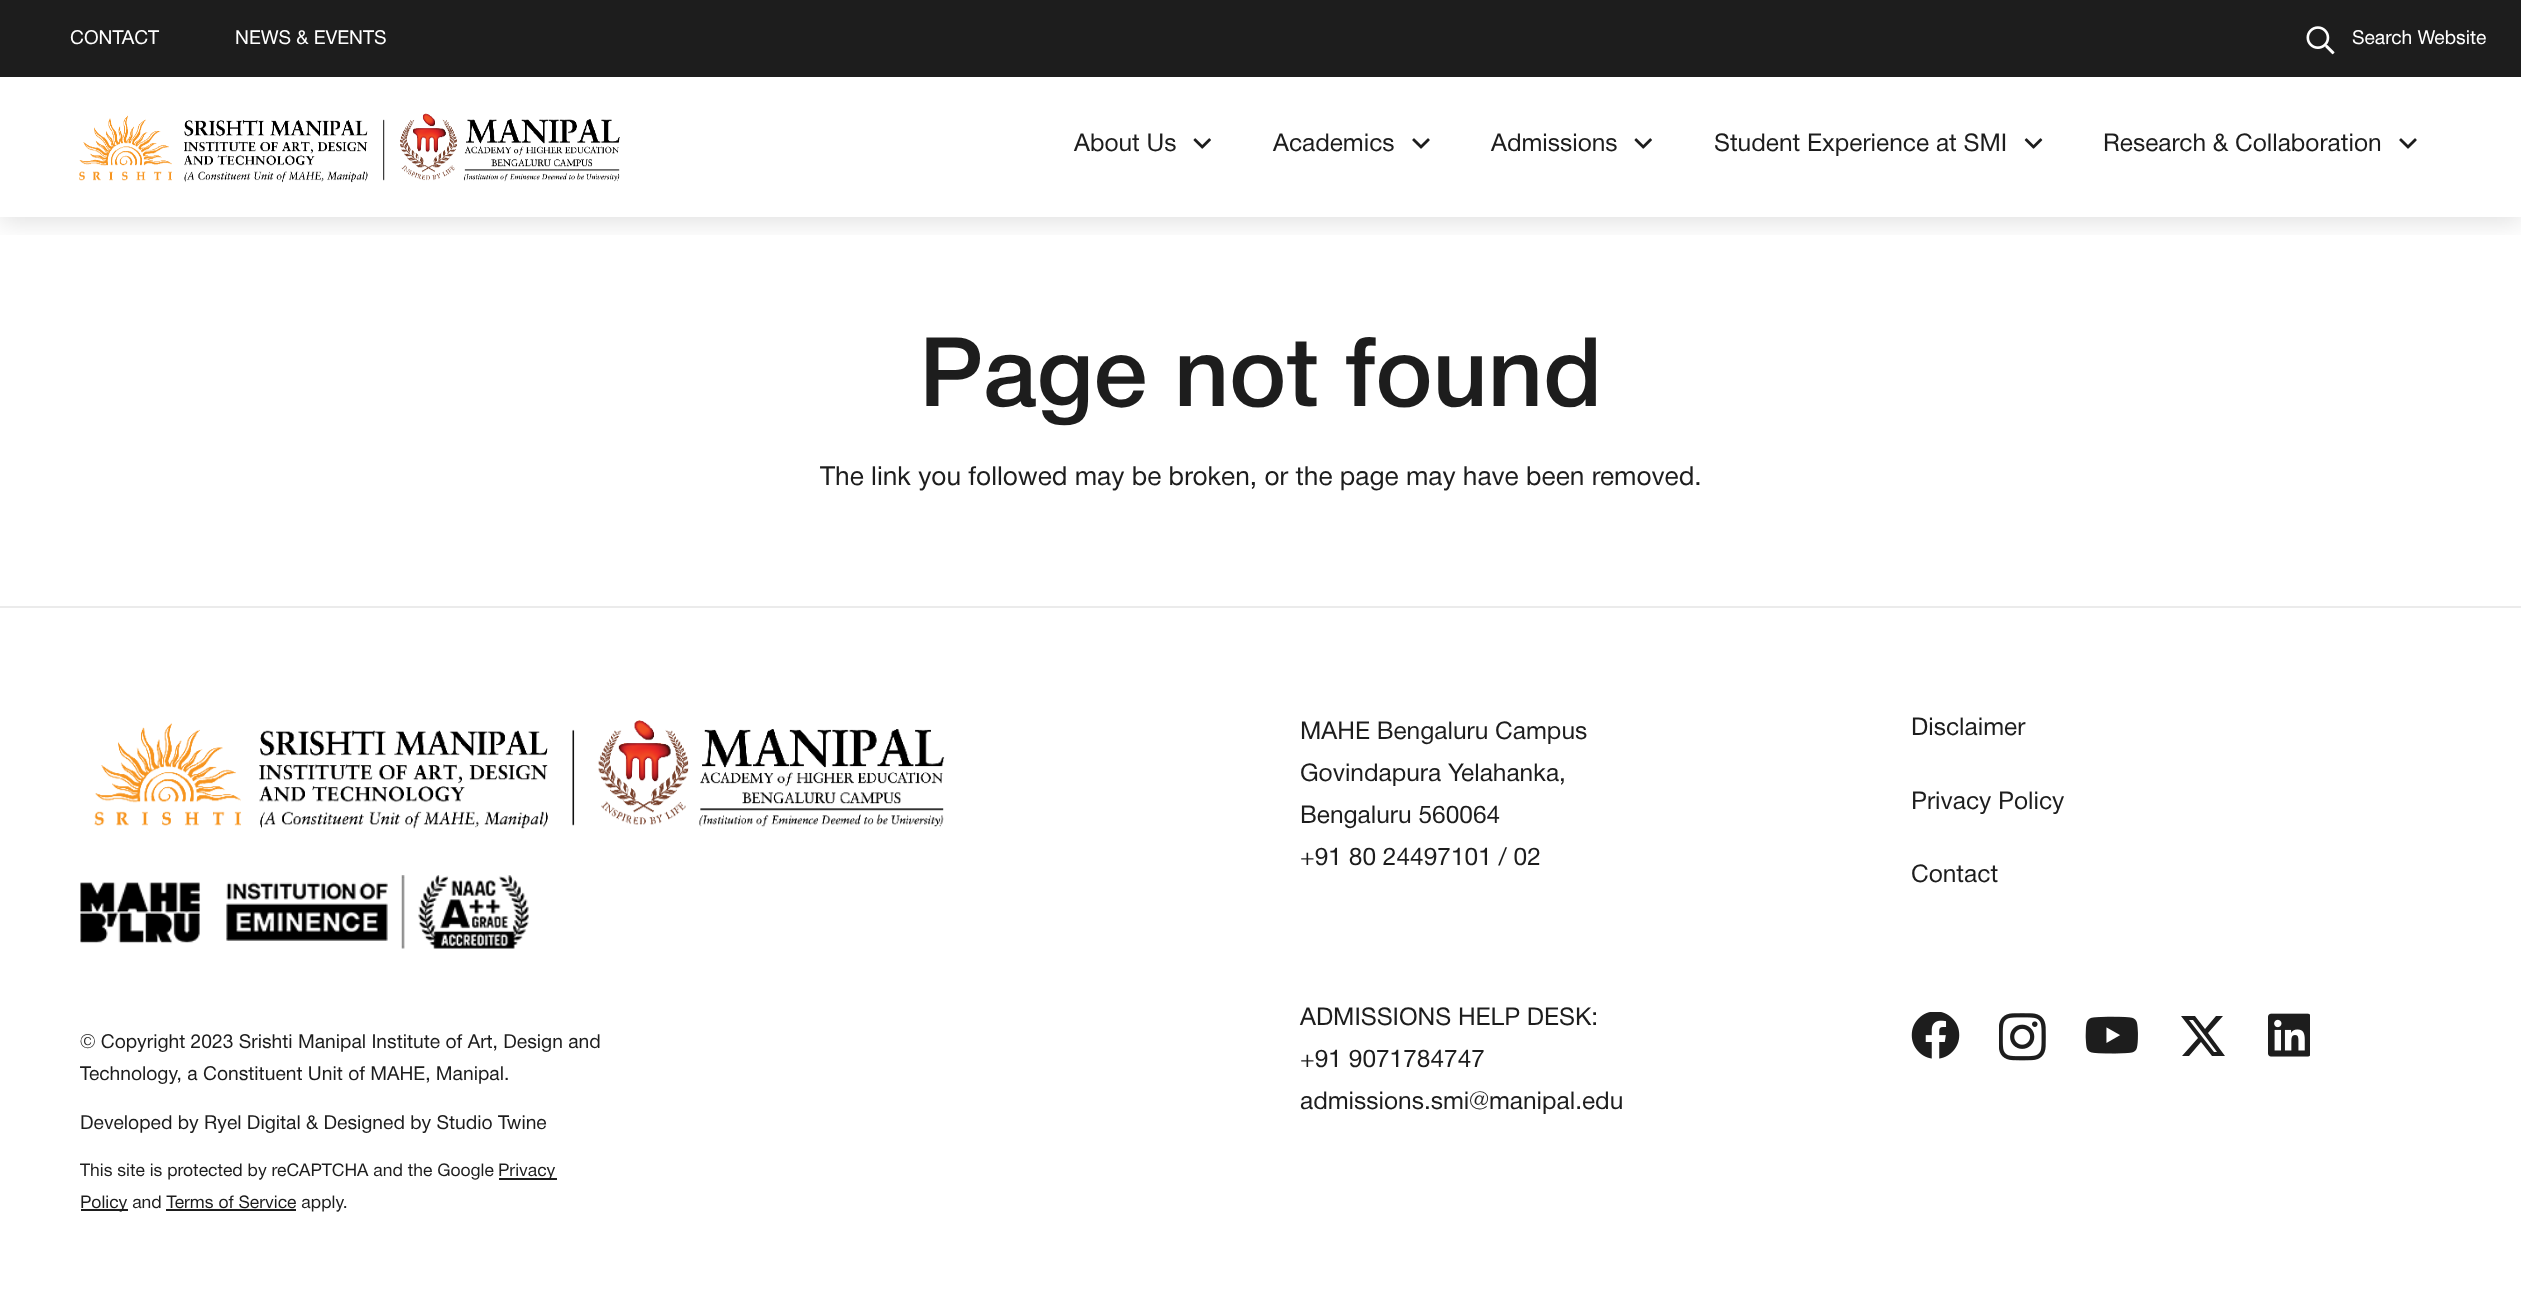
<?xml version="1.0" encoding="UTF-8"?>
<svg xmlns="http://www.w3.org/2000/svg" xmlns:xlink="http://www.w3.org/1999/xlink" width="2521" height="1308">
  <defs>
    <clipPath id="clip1"><rect x="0" y="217" width="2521" height="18" /></clipPath>
  </defs>
  <rect width="100%" height="100%" fill="#ffffff" />
  <g clip-path="url(#clip1)">
    <rect y="82" width="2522" height="140" fill="#000000" fill-opacity="0.12" filter="blur(13px)" />
  </g>
  <rect width="2521" height="77" fill="#1d1d1d" />
  <image x="2306" y="26" width="29" height="29" xlink:href="image1.png" />
  <image x="79" y="113" width="541" height="70" xlink:href="image2.png" />
  <image x="1193" y="138" width="18" height="11" xlink:href="image3.png" />
  <image x="1412" y="138" width="18" height="11" xlink:href="image4.png" />
  <image x="1634" y="138" width="18" height="11" xlink:href="image3.png" />
  <image x="2024" y="138" width="19" height="11" xlink:href="image5.png" />
  <image x="2399" y="138" width="18" height="11" xlink:href="image4.png" />
  <rect y="606" width="2521" height="2" fill="#ebebeb" />
  <image x="94" y="720" width="851" height="109" xlink:href="image6.png" />
  <image x="80" y="875" width="449" height="74" xlink:href="image7.png" />
  <rect x="499" y="1178" width="58" height="2" fill="#1d1d1d" />
  <rect x="81" y="1209" width="47" height="2" fill="#1d1d1d" />
  <rect x="166" y="1209" width="130" height="2" fill="#1d1d1d" />
  <image x="1911" y="1012" width="49" height="47" xlink:href="image8.png" />
  <image x="1999" y="1013" width="47" height="48" xlink:href="image9.png" />
  <image x="2085" y="1016" width="53" height="38" xlink:href="image10.png" />
  <path d="M 2216 1016 h 7 l -15 17 l 17 23 h -13 l -11 -14 l -12 14 h -7 l 16 -18 l -17 -22 h 14 l 10 13 z m -2 36 h 3 l -24 -32 h -4 z" fill="#1d1d1d" />
  <image x="2268" y="1013" width="42" height="44" xlink:href="image11.png" />
  <text x="70" y="44" style="font-family: Helvetica Neue; font-size: 19.25px; fill: #ffffff">CONTACT</text>
  <text x="235" y="44" style="font-family: Helvetica Neue; font-size: 19.25px; fill: #ffffff">NEWS &amp; EVENTS</text>
  <text x="2352" y="44" style="font-family: Helvetica Neue; font-size: 19.25px; fill: #ffffff">Search Website</text>
  <text x="1074" y="151" style="font-family: Helvetica Neue; font-size: 24.5px; fill: #1d1d1d">About Us</text>
  <text x="1273" y="151" style="font-family: Helvetica Neue; font-size: 24.5px; fill: #1d1d1d">Academics</text>
  <text x="1491" y="151" style="font-family: Helvetica Neue; font-size: 24.5px; fill: #1d1d1d">Admissions</text>
  <text x="1714" y="151" style="font-family: Helvetica Neue; font-size: 24.5px; fill: #1d1d1d">Student Experience at SMI</text>
  <text x="2103" y="151" style="font-family: Helvetica Neue; font-size: 24.5px; fill: #1d1d1d">Research &amp; Collaboration</text>
  <text x="919" y="406" style="font-family: Helvetica Neue; font-size: 96.25px; font-weight: 500; fill: #1d1d1d">Page not found</text>
  <text x="820" y="485" style="font-family: Helvetica Neue; font-size: 26.25px; fill: #1d1d1d">The link you followed may be broken, or the page may have been removed.</text>
  <text x="80" y="1048" style="font-family: Helvetica Neue; font-size: 19.25px; fill: #1d1d1d">© Copyright 2023 Srishti Manipal Institute of Art, Design and</text>
  <text x="80" y="1080" style="font-family: Helvetica Neue; font-size: 19.25px; fill: #1d1d1d">Technology, a Constituent Unit of MAHE, Manipal.</text>
  <text x="80" y="1129" style="font-family: Helvetica Neue; font-size: 19.25px; fill: #1d1d1d">Developed by Ryel Digital &amp; Designed by Studio Twine</text>
  <text x="80" y="1176" style="font-family: Helvetica Neue; font-size: 17.5px; fill: #1d1d1d">This site is protected by reCAPTCHA and the Google</text>
  <text x="498" y="1176" style="font-family: Helvetica Neue; font-size: 17.5px; fill: #1d1d1d">Privacy</text>
  <text x="80" y="1208" style="font-family: Helvetica Neue; font-size: 17.5px; fill: #1d1d1d">Policy and Terms of Service apply.</text>
  <text x="1300" y="739" style="font-family: Helvetica Neue; font-size: 24.5px; fill: #1d1d1d">MAHE Bengaluru Campus</text>
  <text x="1300" y="781" style="font-family: Helvetica Neue; font-size: 24.5px; fill: #1d1d1d">Govindapura Yelahanka,</text>
  <text x="1300" y="823" style="font-family: Helvetica Neue; font-size: 24.5px; fill: #1d1d1d">Bengaluru 560064</text>
  <text x="1300" y="865" style="font-family: Helvetica Neue; font-size: 24.5px; fill: #1d1d1d">+91 80 24497101 / 02</text>
  <text x="1300" y="1025" style="font-family: Helvetica Neue; font-size: 24.5px; fill: #1d1d1d">ADMISSIONS HELP DESK:</text>
  <text x="1300" y="1067" style="font-family: Helvetica Neue; font-size: 24.5px; fill: #1d1d1d">+91 9071784747</text>
  <text x="1300" y="1109" style="font-family: Helvetica Neue; font-size: 24.5px; fill: #1d1d1d">admissions.smi@manipal.edu</text>
  <text x="1911" y="735" style="font-family: Helvetica Neue; font-size: 24.5px; fill: #1d1d1d">Disclaimer</text>
  <text x="1911" y="809" style="font-family: Helvetica Neue; font-size: 24.5px; fill: #1d1d1d">Privacy Policy</text>
  <text x="1911" y="882" style="font-family: Helvetica Neue; font-size: 24.5px; fill: #1d1d1d">Contact</text>
</svg>
